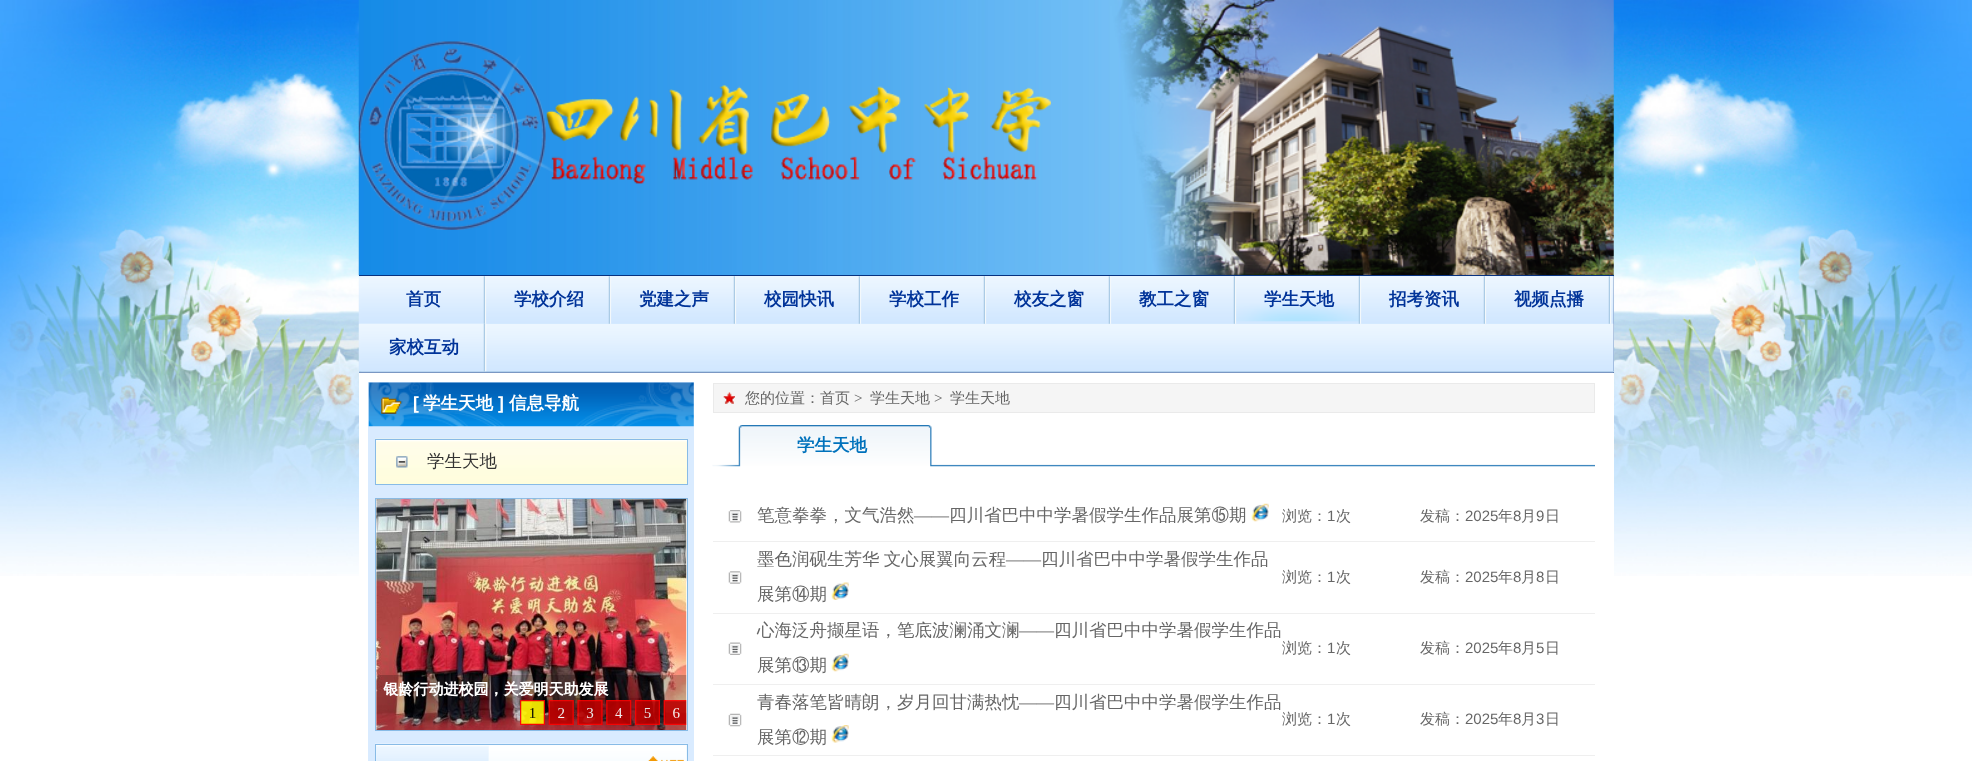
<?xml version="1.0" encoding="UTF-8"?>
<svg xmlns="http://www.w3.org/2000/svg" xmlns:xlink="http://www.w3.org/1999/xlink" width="1972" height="761">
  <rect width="100%" height="100%" fill="#ffffff" />
  <image x="0" y="0" width="1972" height="576" xlink:href="image1.png" />
  <image x="358" y="0" width="1256" height="275" xlink:href="image2.png" />
  <rect x="359" y="276" width="1255" height="97" fill="#093887" />
  <image x="358" y="275" width="1256" height="98" xlink:href="image3.png" />
  <rect x="359" y="275" width="1255" height="1" fill="#073280" />
  <rect x="359" y="371" width="1255" height="1" fill="#b2d1ed" />
  <image x="361" y="276" width="126" height="48" xlink:href="image4.png" />
  <image x="486" y="276" width="126" height="48" xlink:href="image5.png" />
  <image x="611" y="276" width="126" height="48" xlink:href="image5.png" />
  <image x="736" y="276" width="126" height="48" xlink:href="image5.png" />
  <image x="861" y="276" width="126" height="48" xlink:href="image5.png" />
  <image x="986" y="276" width="126" height="48" xlink:href="image5.png" />
  <image x="1111" y="276" width="126" height="48" xlink:href="image5.png" />
  <image x="1236" y="276" width="126" height="48" xlink:href="image6.png" />
  <image x="1361" y="276" width="126" height="48" xlink:href="image5.png" />
  <image x="1486" y="276" width="126" height="48" xlink:href="image5.png" />
  <image x="361" y="323" width="126" height="49" xlink:href="image7.png" />
  <rect x="359" y="373" width="1255" height="203" fill="#ffffff" />
  <rect x="368" y="382" width="326" height="379" fill="#d9ebff" />
  <image x="368" y="382" width="326" height="45" xlink:href="image8.png" />
  <image x="381" y="397" width="21" height="17" xlink:href="image9.png" />
  <image x="375" y="438" width="313" height="46" xlink:href="image10.png" />
  <rect x="375.5" y="439.5" width="312" height="45" fill="none" stroke="#88bbe6" />
  <image x="396" y="456" width="12" height="12" xlink:href="image11.png" />
  <rect x="375.5" y="498.5" width="312" height="232" fill="#ffffff" stroke="#88bbe6" />
  <image x="376" y="498" width="311" height="232" xlink:href="image12.png" />
  <image x="375" y="743" width="313" height="18" xlink:href="image13.png" />
  <rect x="375.5" y="744.5" width="312" height="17" fill="none" stroke="#88bbe6" />
  <image x="376" y="745" width="113" height="16" xlink:href="image14.png" />
  <image x="488" y="745" width="199" height="16" xlink:href="image15.png" />
  <image x="648" y="756" width="36" height="5" xlink:href="image16.png" />
  <rect x="713.5" y="383.5" width="881" height="29" fill="#f5f5f5" stroke="#eaeaea" />
  <image x="723" y="392" width="12" height="12" xlink:href="image17.png" />
  <image x="712" y="425" width="883" height="42" xlink:href="image18.png" />
  <rect x="713" y="541" width="882" height="1" fill="#efefef" />
  <image x="728" y="510" width="14" height="13" xlink:href="image19.png" />
  <image x="1251" y="503" width="18" height="19" xlink:href="image20.png" />
  <rect x="713" y="613" width="882" height="1" fill="#efefef" />
  <image x="728" y="571" width="14" height="13" xlink:href="image21.png" />
  <image x="831" y="582" width="18" height="18" xlink:href="image22.png" />
  <rect x="713" y="684" width="882" height="1" fill="#efefef" />
  <image x="728" y="642" width="14" height="13" xlink:href="image23.png" />
  <image x="831" y="653" width="18" height="19" xlink:href="image20.png" />
  <rect x="713" y="755" width="882" height="1" fill="#efefef" />
  <image x="728" y="713" width="14" height="14" xlink:href="image24.png" />
  <image x="831" y="725" width="18" height="18" xlink:href="image25.png" />
  <text x="406" y="305" style="font-family: WenQuanYi Zen Hei; font-size: 17.5px; font-weight: bold; fill: #003399">首页</text>
  <text x="514" y="305" style="font-family: WenQuanYi Zen Hei; font-size: 17.5px; font-weight: bold; fill: #003399">学校介绍</text>
  <text x="639" y="305" style="font-family: WenQuanYi Zen Hei; font-size: 17.5px; font-weight: bold; fill: #003399">党建之声</text>
  <text x="764" y="305" style="font-family: WenQuanYi Zen Hei; font-size: 17.5px; font-weight: bold; fill: #003399">校园快讯</text>
  <text x="889" y="305" style="font-family: WenQuanYi Zen Hei; font-size: 17.5px; font-weight: bold; fill: #003399">学校工作</text>
  <text x="1014" y="305" style="font-family: WenQuanYi Zen Hei; font-size: 17.5px; font-weight: bold; fill: #003399">校友之窗</text>
  <text x="1139" y="305" style="font-family: WenQuanYi Zen Hei; font-size: 17.5px; font-weight: bold; fill: #003399">教工之窗</text>
  <text x="1264" y="305" style="font-family: WenQuanYi Zen Hei; font-size: 17.5px; font-weight: bold; fill: #003399">学生天地</text>
  <text x="1389" y="305" style="font-family: WenQuanYi Zen Hei; font-size: 17.5px; font-weight: bold; fill: #003399">招考资讯</text>
  <text x="1514" y="305" style="font-family: WenQuanYi Zen Hei; font-size: 17.5px; font-weight: bold; fill: #003399">视频点播</text>
  <text x="389" y="353" style="font-family: WenQuanYi Zen Hei; font-size: 17.5px; font-weight: bold; fill: #003399">家校互动</text>
  <text x="413" y="409" style="font-family: Liberation Sans; font-size: 17.5px; font-weight: bold; fill: #ffffff">[</text>
  <text x="423" y="409" style="font-family: WenQuanYi Zen Hei; font-size: 17.5px; font-weight: bold; fill: #ffffff">学生天地</text>
  <text x="498" y="409" style="font-family: Liberation Sans; font-size: 17.5px; font-weight: bold; fill: #ffffff">]</text>
  <text x="509" y="409" style="font-family: WenQuanYi Zen Hei; font-size: 17.5px; font-weight: bold; fill: #ffffff">信息导航</text>
  <text x="427" y="467" style="font-family: WenQuanYi Zen Hei; font-size: 17.5px; font-weight: 500; fill: #333333">学生天地</text>
  <text x="745" y="403" style="font-family: WenQuanYi Zen Hei; font-size: 15px; font-weight: 500; fill: #666666">您的位置：首页</text>
  <text x="854" y="403" style="font-family: Liberation Serif; font-size: 15px; fill: #666666">&gt;</text>
  <text x="870" y="403" style="font-family: WenQuanYi Zen Hei; font-size: 15px; font-weight: 500; fill: #666666">学生天地</text>
  <text x="934" y="403" style="font-family: Liberation Serif; font-size: 15px; fill: #666666">&gt;</text>
  <text x="950" y="403" style="font-family: WenQuanYi Zen Hei; font-size: 15px; font-weight: 500; fill: #666666">学生天地</text>
  <text x="797" y="451" style="font-family: WenQuanYi Zen Hei; font-size: 17.5px; font-weight: bold; fill: #0072bc">学生天地</text>
  <text x="757" y="521" style="font-family: WenQuanYi Zen Hei; font-size: 17.5px; font-weight: 500; fill: #666666">笔意拳拳，文气浩然</text>
  <text x="914" y="521" style="font-family: Liberation Serif; font-size: 17.5px; fill: #666666">——</text>
  <text x="949" y="521" style="font-family: WenQuanYi Zen Hei; font-size: 17.5px; font-weight: 500; fill: #666666">四川省巴中中学暑假学生作品展第⑮期</text>
  <text x="1282" y="521" style="font-family: WenQuanYi Zen Hei; font-size: 15px; font-weight: 500; fill: #666666">浏览：</text>
  <text x="1327" y="521" style="font-family: Liberation Sans; font-size: 15px; fill: #666666">1</text>
  <text x="1336" y="521" style="font-family: WenQuanYi Zen Hei; font-size: 15px; font-weight: 500; fill: #666666">次</text>
  <text x="1420" y="521" style="font-family: WenQuanYi Zen Hei; font-size: 15px; font-weight: 500; fill: #666666">发稿：</text>
  <text x="1465" y="521" style="font-family: Liberation Sans; font-size: 15px; fill: #666666">2025</text>
  <text x="1498" y="521" style="font-family: WenQuanYi Zen Hei; font-size: 15px; font-weight: 500; fill: #666666">年</text>
  <text x="1513" y="521" style="font-family: Liberation Sans; font-size: 15px; fill: #666666">8</text>
  <text x="1521" y="521" style="font-family: WenQuanYi Zen Hei; font-size: 15px; font-weight: 500; fill: #666666">月</text>
  <text x="1536" y="521" style="font-family: Liberation Sans; font-size: 15px; fill: #666666">9</text>
  <text x="1545" y="521" style="font-family: WenQuanYi Zen Hei; font-size: 15px; font-weight: 500; fill: #666666">日</text>
  <text x="757" y="565" word-spacing="-1" style="font-family: WenQuanYi Zen Hei; font-size: 17.5px; font-weight: 500; fill: #666666">墨色润砚生芳华 文心展翼向云程</text>
  <text x="1006" y="565" style="font-family: Liberation Serif; font-size: 17.5px; fill: #666666">——</text>
  <text x="1041" y="565" style="font-family: WenQuanYi Zen Hei; font-size: 17.5px; font-weight: 500; fill: #666666">四川省巴中中学暑假学生作品</text>
  <text x="757" y="600" style="font-family: WenQuanYi Zen Hei; font-size: 17.5px; font-weight: 500; fill: #666666">展第⑭期</text>
  <text x="1282" y="582" style="font-family: WenQuanYi Zen Hei; font-size: 15px; font-weight: 500; fill: #666666">浏览：</text>
  <text x="1327" y="582" style="font-family: Liberation Sans; font-size: 15px; fill: #666666">1</text>
  <text x="1336" y="582" style="font-family: WenQuanYi Zen Hei; font-size: 15px; font-weight: 500; fill: #666666">次</text>
  <text x="1420" y="582" style="font-family: WenQuanYi Zen Hei; font-size: 15px; font-weight: 500; fill: #666666">发稿：</text>
  <text x="1465" y="582" style="font-family: Liberation Sans; font-size: 15px; fill: #666666">2025</text>
  <text x="1498" y="582" style="font-family: WenQuanYi Zen Hei; font-size: 15px; font-weight: 500; fill: #666666">年</text>
  <text x="1513" y="582" style="font-family: Liberation Sans; font-size: 15px; fill: #666666">8</text>
  <text x="1521" y="582" style="font-family: WenQuanYi Zen Hei; font-size: 15px; font-weight: 500; fill: #666666">月</text>
  <text x="1536" y="582" style="font-family: Liberation Sans; font-size: 15px; fill: #666666">8</text>
  <text x="1545" y="582" style="font-family: WenQuanYi Zen Hei; font-size: 15px; font-weight: 500; fill: #666666">日</text>
  <text x="757" y="636" style="font-family: WenQuanYi Zen Hei; font-size: 17.5px; font-weight: 500; fill: #666666">心海泛舟撷星语，笔底波澜涌文澜</text>
  <text x="1019" y="636" style="font-family: Liberation Serif; font-size: 17.5px; fill: #666666">——</text>
  <text x="1054" y="636" style="font-family: WenQuanYi Zen Hei; font-size: 17.5px; font-weight: 500; fill: #666666">四川省巴中中学暑假学生作品</text>
  <text x="757" y="671" style="font-family: WenQuanYi Zen Hei; font-size: 17.5px; font-weight: 500; fill: #666666">展第⑬期</text>
  <text x="1282" y="653" style="font-family: WenQuanYi Zen Hei; font-size: 15px; font-weight: 500; fill: #666666">浏览：</text>
  <text x="1327" y="653" style="font-family: Liberation Sans; font-size: 15px; fill: #666666">1</text>
  <text x="1336" y="653" style="font-family: WenQuanYi Zen Hei; font-size: 15px; font-weight: 500; fill: #666666">次</text>
  <text x="1420" y="653" style="font-family: WenQuanYi Zen Hei; font-size: 15px; font-weight: 500; fill: #666666">发稿：</text>
  <text x="1465" y="653" style="font-family: Liberation Sans; font-size: 15px; fill: #666666">2025</text>
  <text x="1498" y="653" style="font-family: WenQuanYi Zen Hei; font-size: 15px; font-weight: 500; fill: #666666">年</text>
  <text x="1513" y="653" style="font-family: Liberation Sans; font-size: 15px; fill: #666666">8</text>
  <text x="1521" y="653" style="font-family: WenQuanYi Zen Hei; font-size: 15px; font-weight: 500; fill: #666666">月</text>
  <text x="1536" y="653" style="font-family: Liberation Sans; font-size: 15px; fill: #666666">5</text>
  <text x="1545" y="653" style="font-family: WenQuanYi Zen Hei; font-size: 15px; font-weight: 500; fill: #666666">日</text>
  <text x="757" y="708" style="font-family: WenQuanYi Zen Hei; font-size: 17.5px; font-weight: 500; fill: #666666">青春落笔皆晴朗，岁月回甘满热忱</text>
  <text x="1019" y="708" style="font-family: Liberation Serif; font-size: 17.5px; fill: #666666">——</text>
  <text x="1054" y="708" style="font-family: WenQuanYi Zen Hei; font-size: 17.5px; font-weight: 500; fill: #666666">四川省巴中中学暑假学生作品</text>
  <text x="757" y="743" style="font-family: WenQuanYi Zen Hei; font-size: 17.5px; font-weight: 500; fill: #666666">展第⑫期</text>
  <text x="1282" y="724" style="font-family: WenQuanYi Zen Hei; font-size: 15px; font-weight: 500; fill: #666666">浏览：</text>
  <text x="1327" y="724" style="font-family: Liberation Sans; font-size: 15px; fill: #666666">1</text>
  <text x="1336" y="724" style="font-family: WenQuanYi Zen Hei; font-size: 15px; font-weight: 500; fill: #666666">次</text>
  <text x="1420" y="724" style="font-family: WenQuanYi Zen Hei; font-size: 15px; font-weight: 500; fill: #666666">发稿：</text>
  <text x="1465" y="724" style="font-family: Liberation Sans; font-size: 15px; fill: #666666">2025</text>
  <text x="1498" y="724" style="font-family: WenQuanYi Zen Hei; font-size: 15px; font-weight: 500; fill: #666666">年</text>
  <text x="1513" y="724" style="font-family: Liberation Sans; font-size: 15px; fill: #666666">8</text>
  <text x="1521" y="724" style="font-family: WenQuanYi Zen Hei; font-size: 15px; font-weight: 500; fill: #666666">月</text>
  <text x="1536" y="724" style="font-family: Liberation Sans; font-size: 15px; fill: #666666">3</text>
  <text x="1545" y="724" style="font-family: WenQuanYi Zen Hei; font-size: 15px; font-weight: 500; fill: #666666">日</text>
</svg>
